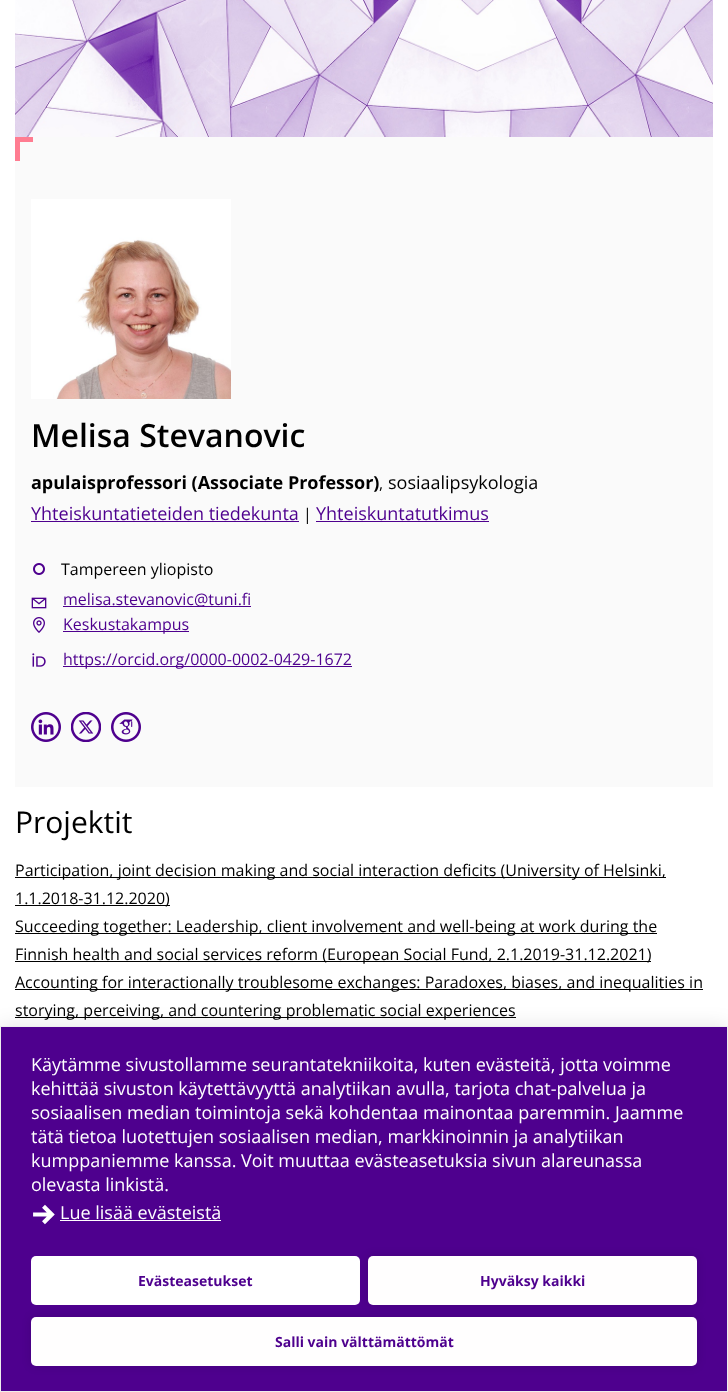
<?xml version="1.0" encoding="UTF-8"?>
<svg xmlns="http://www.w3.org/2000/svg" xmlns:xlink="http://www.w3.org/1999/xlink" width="728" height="1392">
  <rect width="100%" height="100%" fill="#ffffff" />
  <image x="15" y="0" width="698" height="137" xlink:href="image1.png" />
  <rect x="15" y="137" width="698" height="650" fill="#fafafa" />
  <path d="M 20 161 h -5 v -24 h 18 v 5 h -13 z" fill="#ff7c91" />
  <image x="31" y="199" width="200" height="200" xlink:href="image2.png" />
  <rect x="31" y="521" width="268" height="1" fill="#4e008e" />
  <rect x="316" y="521" width="173" height="1" fill="#4e008e" />
  <image x="33" y="563" width="12" height="12" xlink:href="image3.png" />
  <image x="31" y="597" width="16" height="12" xlink:href="image4.png" />
  <rect x="63" y="606" width="188" height="1" fill="#4e008e" />
  <image x="33" y="617" width="12" height="16" xlink:href="image5.png" />
  <rect x="63" y="631" width="126" height="1" fill="#4e008e" />
  <image x="32" y="653" width="14" height="14" xlink:href="image6.png" />
  <rect x="63" y="666" width="289" height="1" fill="#4e008e" />
  <image x="31" y="712" width="30" height="30" xlink:href="image7.png" />
  <image x="71" y="712" width="30" height="30" xlink:href="image8.png" />
  <image x="111" y="712" width="30" height="30" xlink:href="image9.png" />
  <rect x="15" y="877" width="651" height="1" fill="#000000" />
  <rect x="15" y="905" width="155" height="1" fill="#000000" />
  <rect x="15" y="933" width="642" height="1" fill="#000000" />
  <rect x="15" y="961" width="636" height="1" fill="#000000" />
  <rect x="15" y="989" width="688" height="1" fill="#000000" />
  <rect x="15" y="1017" width="501" height="1" fill="#000000" />
  <rect y="1026" width="728" height="366" fill="#000000" fill-opacity="0.1" filter="blur(10px)" />
  <rect x="0.5" y="1026.5" width="727" height="365" fill="#4e008e" stroke="#eeeeee" />
  <image x="33" y="1204" width="22" height="21" xlink:href="image10.png" />
  <rect x="60" y="1220" width="161" height="1" fill="#ffffff" />
  <rect x="31" y="1256" width="329" height="49" rx="5" fill="#ffffff" />
  <rect x="368" y="1256" width="329" height="49" rx="5" fill="#000000" fill-opacity="0.12" filter="blur(5px)" />
  <rect x="368" y="1256" width="329" height="49" rx="5" fill="#fffefe" />
  <rect x="31" y="1317" width="666" height="49" rx="5" fill="#000000" fill-opacity="0.12" filter="blur(5px)" />
  <rect x="31" y="1317" width="666" height="49" rx="5" fill="#fffefe" />
  <text x="31" y="447" style="font-family: Open Sans; font-size: 32px; font-weight: 600; fill: #000000">Melisa Stevanovic</text>
  <text x="31" y="489" style="font-family: Open Sans; font-size: 18px; font-weight: bold; fill: #000000">apulaisprofessori (Associate Professor)</text>
  <text x="379" y="489" style="font-family: Open Sans; font-size: 16px; fill: #000000">,</text>
  <text x="388" y="489" style="font-family: Open Sans; font-size: 18px; fill: #000000">sosiaalipsykologia</text>
  <text x="31" y="520" style="font-family: Open Sans; font-size: 18px; fill: #4e008e">Yhteiskuntatieteiden tiedekunta</text>
  <text x="303" y="520" style="font-family: Open Sans; font-size: 16px; fill: #000000">|</text>
  <text x="316" y="520" style="font-family: Open Sans; font-size: 18px; fill: #4e008e">Yhteiskuntatutkimus</text>
  <text x="61" y="575" style="font-family: Open Sans; font-size: 16px; fill: #000000">Tampereen yliopisto</text>
  <text x="63" y="605" style="font-family: Open Sans; font-size: 16px; fill: #4e008e">melisa.stevanovic@tuni.fi</text>
  <text x="63" y="630" style="font-family: Open Sans; font-size: 16px; fill: #4e008e">Keskustakampus</text>
  <text x="63" y="665" style="font-family: Open Sans; font-size: 16px; fill: #4e008e">https://orcid.org/0000-0002-0429-1672</text>
  <text x="15" y="833" style="font-family: Open Sans; font-size: 30px; fill: #000000">Projektit</text>
  <text x="15" y="876" style="font-family: Open Sans; font-size: 16px; fill: #000000">Participation, joint decision making and social interaction deficits (University of Helsinki,</text>
  <text x="15" y="904" style="font-family: Open Sans; font-size: 16px; fill: #000000">1.1.2018-31.12.2020)</text>
  <text x="15" y="932" style="font-family: Open Sans; font-size: 16px; fill: #000000">Succeeding together: Leadership, client involvement and well-being at work during the</text>
  <text x="15" y="960" style="font-family: Open Sans; font-size: 16px; fill: #000000">Finnish health and social services reform (European Social Fund, 2.1.2019-31.12.2021)</text>
  <text x="15" y="988" style="font-family: Open Sans; font-size: 16px; fill: #000000">Accounting for interactionally troublesome exchanges: Paradoxes, biases, and inequalities in</text>
  <text x="15" y="1016" style="font-family: Open Sans; font-size: 16px; fill: #000000">storying, perceiving, and countering problematic social experiences</text>
  <text x="31" y="1071" style="font-family: Open Sans; font-size: 18px; fill: #ffffff">Käytämme sivustollamme seurantatekniikoita, kuten evästeitä, jotta voimme</text>
  <text x="31" y="1095" style="font-family: Open Sans; font-size: 18px; fill: #ffffff">kehittää sivuston käytettävyyttä analytiikan avulla, tarjota chat-palvelua ja</text>
  <text x="31" y="1119" style="font-family: Open Sans; font-size: 18px; fill: #ffffff">sosiaalisen median toimintoja sekä kohdentaa mainontaa paremmin. Jaamme</text>
  <text x="31" y="1143" style="font-family: Open Sans; font-size: 18px; fill: #ffffff">tätä tietoa luotettujen sosiaalisen median, markkinoinnin ja analytiikan</text>
  <text x="31" y="1167" style="font-family: Open Sans; font-size: 18px; fill: #ffffff">kumppaniemme kanssa. Voit muuttaa evästeasetuksia sivun alareunassa</text>
  <text x="31" y="1191" style="font-family: Open Sans; font-size: 18px; fill: #ffffff">olevasta linkistä.</text>
  <text x="60" y="1219" style="font-family: Open Sans; font-size: 18px; fill: #ffffff">Lue lisää evästeistä</text>
  <text x="138" y="1286" style="font-family: Open Sans; font-size: 14px; font-weight: bold; fill: #4e008e">Evästeasetukset</text>
  <text x="480" y="1286" style="font-family: Open Sans; font-size: 14px; font-weight: bold; fill: #4e008e">Hyväksy kaikki</text>
  <text x="275" y="1347" style="font-family: Open Sans; font-size: 14px; font-weight: bold; fill: #4e008e">Salli vain välttämättömät</text>
</svg>
